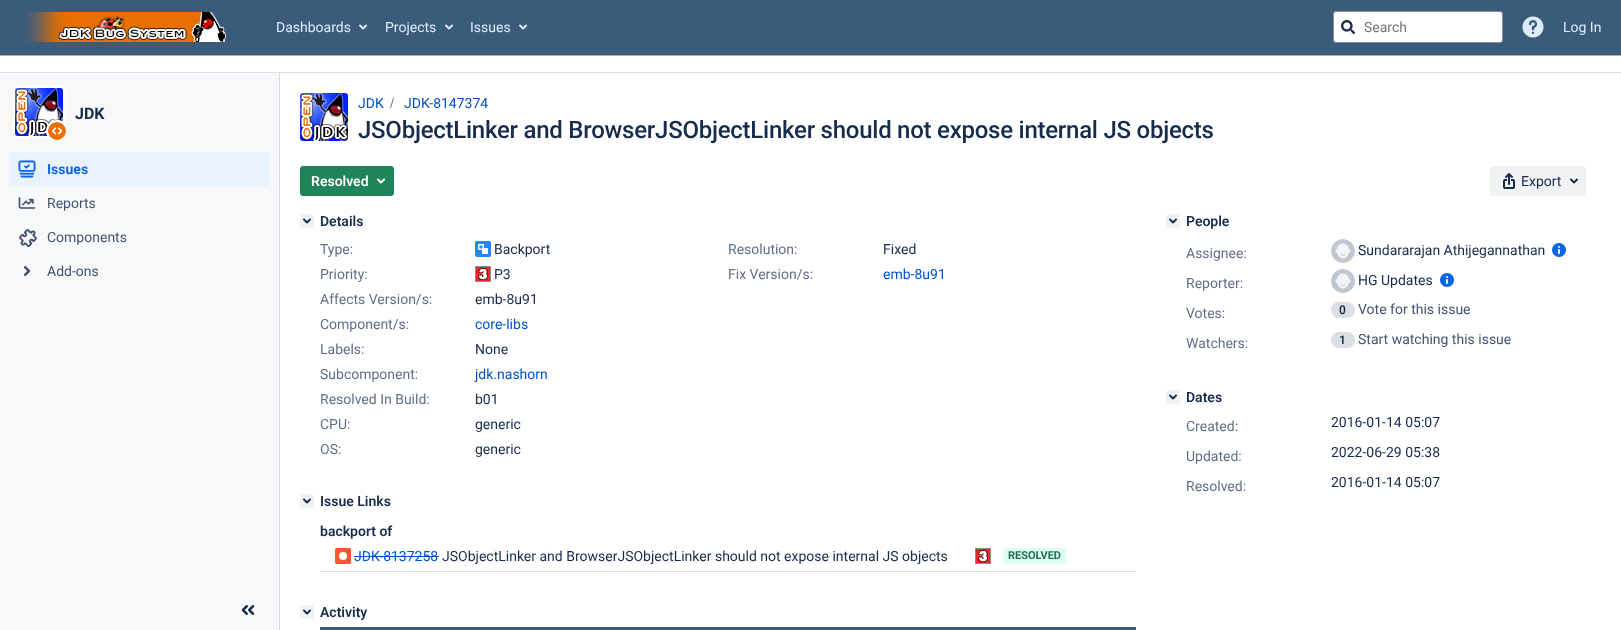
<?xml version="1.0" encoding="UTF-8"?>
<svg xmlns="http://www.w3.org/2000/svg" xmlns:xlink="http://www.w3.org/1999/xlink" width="1621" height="630">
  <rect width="100%" height="100%" fill="#ffffff" />
  <rect width="1621" height="55" fill="#3b5b7b" />
  <rect y="55" width="1621" height="1" fill="#a4b3c4" />
  <image x="25" y="12" width="201" height="30" xlink:href="image1.png" />
  <image x="359" y="24" width="8" height="6" xlink:href="image2.png" />
  <image x="445" y="24" width="8" height="6" xlink:href="image2.png" />
  <image x="519" y="24" width="8" height="6" xlink:href="image2.png" />
  <rect x="1333.5" y="11.5" width="169" height="31" rx="2.5" fill="#ffffff" stroke="#8590a2" />
  <image x="1341" y="20" width="14" height="14" xlink:href="image3.png" />
  <image x="1522" y="16" width="22" height="22" xlink:href="image4.png" />
  <rect y="72" width="1621" height="1" fill="#dde0e5" />
  <rect y="73" width="279" height="557" fill="#f7f8f9" />
  <rect x="279" y="73" width="1" height="557" fill="#d6d9df" />
  <rect x="14" y="87" width="50" height="50" rx="4" fill="none" stroke="#ffffff" stroke-width="2" />
  <image x="15" y="88" width="48" height="48" xlink:href="image5.png" />
  <circle cx="57" cy="131" r="11" fill="#ffffff" />
  <image x="48" y="122" width="18" height="18" xlink:href="image6.png" />
  <rect x="10" y="152" width="259" height="34" rx="3" fill="#e9f2ff" />
  <image x="18" y="160" width="18" height="18" xlink:href="image7.png" />
  <image x="18" y="197" width="18" height="12" xlink:href="image8.png" />
  <image x="19" y="229" width="18" height="18" xlink:href="image9.png" />
  <image x="23" y="266" width="8" height="10" xlink:href="image10.png" />
  <image x="241" y="605" width="14" height="10" xlink:href="image11.png" />
  <image x="300" y="93" width="48" height="48" xlink:href="image12.png" />
  <path d="M 391 108 l 3 -10 h -1 l -3 10 z" fill="#707070" />
  <rect x="300.5" y="166.5" width="93" height="29" rx="2.5" fill="#1f845a" stroke="#1f845a" />
  <image x="377" y="178" width="8" height="6" xlink:href="image13.png" />
  <rect x="1490" y="166" width="96" height="30" rx="3" fill="#f0f2f4" />
  <image x="1503" y="173" width="12" height="16" xlink:href="image14.png" />
  <image x="1570" y="178" width="8" height="6" xlink:href="image15.png" />
  <rect x="300" y="214" width="14" height="14" rx="3" fill="#f0f2f4" />
  <image x="303" y="218" width="8" height="6" xlink:href="image16.png" />
  <image x="475" y="241" width="16" height="16" xlink:href="image17.png" />
  <image x="475" y="266" width="16" height="16" xlink:href="image18.png" />
  <rect x="300" y="494" width="14" height="14" rx="3" fill="#f0f2f4" />
  <image x="303" y="498" width="8" height="6" xlink:href="image16.png" />
  <rect x="320" y="571" width="816" height="1" fill="#dde0e5" />
  <image x="335" y="548" width="16" height="16" xlink:href="image19.png" />
  <rect x="354" y="556" width="85" height="1" fill="#0052cc" />
  <image x="975" y="548" width="16" height="16" xlink:href="image18.png" />
  <rect x="1003" y="548" width="63" height="16" rx="3" fill="#dcfff1" />
  <rect x="300" y="605" width="14" height="14" rx="3" fill="#f0f2f4" />
  <image x="303" y="609" width="8" height="6" xlink:href="image16.png" />
  <rect x="320" y="627" width="816" height="3" fill="#3b5b7b" />
  <rect x="1166" y="214" width="14" height="14" rx="3" fill="#f0f2f4" />
  <image x="1169" y="218" width="8" height="6" xlink:href="image16.png" />
  <image x="1331" y="239" width="24" height="24" xlink:href="image20.png" />
  <image x="1552" y="243" width="14" height="14" xlink:href="image21.png" />
  <image x="1331" y="269" width="24" height="24" xlink:href="image22.png" />
  <image x="1440" y="273" width="14" height="14" xlink:href="image21.png" />
  <rect x="1331" y="302" width="24" height="16" rx="8" fill="#dcdfe4" />
  <rect x="1331" y="332" width="24" height="16" rx="8" fill="#dcdfe4" />
  <rect x="1166" y="390" width="14" height="14" rx="3" fill="#f0f2f4" />
  <image x="1169" y="394" width="8" height="6" xlink:href="image16.png" />
  <text x="276" y="32" style="font-family: Roboto; font-size: 14px; fill: #deebff">Dashboards</text>
  <text x="385" y="32" style="font-family: Roboto; font-size: 14px; fill: #deebff">Projects</text>
  <text x="470" y="32" style="font-family: Roboto; font-size: 14px; fill: #deebff">Issues</text>
  <text x="1364" y="32" style="font-family: Roboto; font-size: 14px; fill: #757575">Search</text>
  <text x="1563" y="32" style="font-family: Roboto; font-size: 14px; fill: #deebff">Log In</text>
  <text x="75" y="119" style="font-family: Roboto; font-size: 16px; font-weight: bold; fill: #172b4d">JDK</text>
  <text x="47" y="174" style="font-family: Roboto; font-size: 14px; font-weight: bold; fill: #0c66e4">Issues</text>
  <text x="47" y="208" style="font-family: Roboto; font-size: 14px; fill: #44546f">Reports</text>
  <text x="47" y="242" style="font-family: Roboto; font-size: 14px; fill: #44546f">Components</text>
  <text x="47" y="276" style="font-family: Roboto; font-size: 14px; fill: #44546f">Add-ons</text>
  <text x="358" y="108" style="font-family: Roboto; font-size: 14px; fill: #0052cc">JDK</text>
  <text x="404" y="108" style="font-family: Roboto; font-size: 14px; fill: #0052cc">JDK-8147374</text>
  <text x="358" y="138" style="font-family: Roboto; font-size: 24px; font-weight: 500; letter-spacing: -0.25px; fill: #172b4d">JSObjectLinker and BrowserJSObjectLinker should not expose internal JS objects</text>
  <text x="311" y="186" style="font-family: Roboto; font-size: 14px; font-weight: 600; fill: #ffffff">Resolved</text>
  <text x="1521" y="186" style="font-family: Roboto; font-size: 14px; fill: #172b4d">Export</text>
  <text x="320" y="226" style="font-family: Roboto; font-size: 14px; font-weight: 600; fill: #172b4d">Details</text>
  <text x="320" y="254" style="font-family: Roboto; font-size: 14px; fill: #626f86">Type:</text>
  <text x="494" y="254" style="font-family: Roboto; font-size: 14px; fill: #172b4d">Backport</text>
  <text x="728" y="254" style="font-family: Roboto; font-size: 14px; fill: #626f86">Resolution:</text>
  <text x="883" y="254" style="font-family: Roboto; font-size: 14px; fill: #172b4d">Fixed</text>
  <text x="320" y="279" style="font-family: Roboto; font-size: 14px; fill: #626f86">Priority:</text>
  <text x="494" y="279" style="font-family: Roboto; font-size: 14px; fill: #172b4d">P3</text>
  <text x="728" y="279" style="font-family: Roboto; font-size: 14px; fill: #626f86">Fix Version/s:</text>
  <text x="883" y="279" style="font-family: Roboto; font-size: 14px; fill: #0052cc">emb-8u91</text>
  <text x="320" y="304" style="font-family: Roboto; font-size: 14px; fill: #626f86">Affects Version/s:</text>
  <text x="475" y="304" style="font-family: Roboto; font-size: 14px; fill: #172b4d">emb-8u91</text>
  <text x="320" y="329" style="font-family: Roboto; font-size: 14px; fill: #626f86">Component/s:</text>
  <text x="475" y="329" style="font-family: Roboto; font-size: 14px; fill: #0052cc">core-libs</text>
  <text x="320" y="354" style="font-family: Roboto; font-size: 14px; fill: #626f86">Labels:</text>
  <text x="475" y="354" style="font-family: Roboto; font-size: 14px; fill: #172b4d">None</text>
  <text x="320" y="379" style="font-family: Roboto; font-size: 14px; fill: #626f86">Subcomponent:</text>
  <text x="475" y="379" style="font-family: Roboto; font-size: 14px; fill: #0052cc">jdk.nashorn</text>
  <text x="320" y="404" style="font-family: Roboto; font-size: 14px; fill: #626f86">Resolved In Build:</text>
  <text x="475" y="404" style="font-family: Roboto; font-size: 14px; fill: #172b4d">b01</text>
  <text x="320" y="429" style="font-family: Roboto; font-size: 14px; fill: #626f86">CPU:</text>
  <text x="475" y="429" style="font-family: Roboto; font-size: 14px; fill: #172b4d">generic</text>
  <text x="320" y="454" style="font-family: Roboto; font-size: 14px; fill: #626f86">OS:</text>
  <text x="475" y="454" style="font-family: Roboto; font-size: 14px; fill: #172b4d">generic</text>
  <text x="320" y="506" style="font-family: Roboto; font-size: 14px; font-weight: 600; fill: #172b4d">Issue Links</text>
  <text x="320" y="536" style="font-family: Roboto; font-size: 14px; font-weight: 600; fill: #172b4d">backport of</text>
  <text x="354" y="561" style="font-family: Roboto; font-size: 14px; fill: #0052cc">JDK-8137258</text>
  <text x="442" y="561" style="font-family: Roboto; font-size: 14px; fill: #172b4d">JSObjectLinker and BrowserJSObjectLinker should not expose internal JS objects</text>
  <text x="1008" y="559" style="font-family: Roboto; font-size: 11px; font-weight: bold; fill: #216e4e">RESOLVED</text>
  <text x="320" y="617" style="font-family: Roboto; font-size: 14px; font-weight: 600; fill: #172b4d">Activity</text>
  <text x="1186" y="226" style="font-family: Roboto; font-size: 14px; font-weight: 600; fill: #172b4d">People</text>
  <text x="1186" y="258" style="font-family: Roboto; font-size: 14px; fill: #626f86">Assignee:</text>
  <text x="1358" y="255" style="font-family: Roboto; font-size: 14px; fill: #172b4d">Sundararajan Athijegannathan</text>
  <text x="1186" y="288" style="font-family: Roboto; font-size: 14px; fill: #626f86">Reporter:</text>
  <text x="1358" y="285" style="font-family: Roboto; font-size: 14px; fill: #172b4d">HG Updates</text>
  <text x="1186" y="318" style="font-family: Roboto; font-size: 14px; fill: #626f86">Votes:</text>
  <text x="1339" y="314" style="font-family: Roboto; font-size: 12px; font-weight: 600; fill: #172b4d">0</text>
  <text x="1358" y="314" style="font-family: Roboto; font-size: 14px; fill: #44546f">Vote for this issue</text>
  <text x="1186" y="348" style="font-family: Roboto; font-size: 14px; fill: #626f86">Watchers:</text>
  <text x="1339" y="344" style="font-family: Roboto; font-size: 12px; font-weight: 600; fill: #172b4d">1</text>
  <text x="1358" y="344" style="font-family: Roboto; font-size: 14px; fill: #44546f">Start watching this issue</text>
  <text x="1186" y="402" style="font-family: Roboto; font-size: 14px; font-weight: 600; fill: #172b4d">Dates</text>
  <text x="1186" y="431" style="font-family: Roboto; font-size: 14px; fill: #626f86">Created:</text>
  <text x="1331" y="427" style="font-family: Roboto; font-size: 14px; fill: #172b4d">2016-01-14 05:07</text>
  <text x="1186" y="461" style="font-family: Roboto; font-size: 14px; fill: #626f86">Updated:</text>
  <text x="1331" y="457" style="font-family: Roboto; font-size: 14px; fill: #172b4d">2022-06-29 05:38</text>
  <text x="1186" y="491" style="font-family: Roboto; font-size: 14px; fill: #626f86">Resolved:</text>
  <text x="1331" y="487" style="font-family: Roboto; font-size: 14px; fill: #172b4d">2016-01-14 05:07</text>
</svg>
